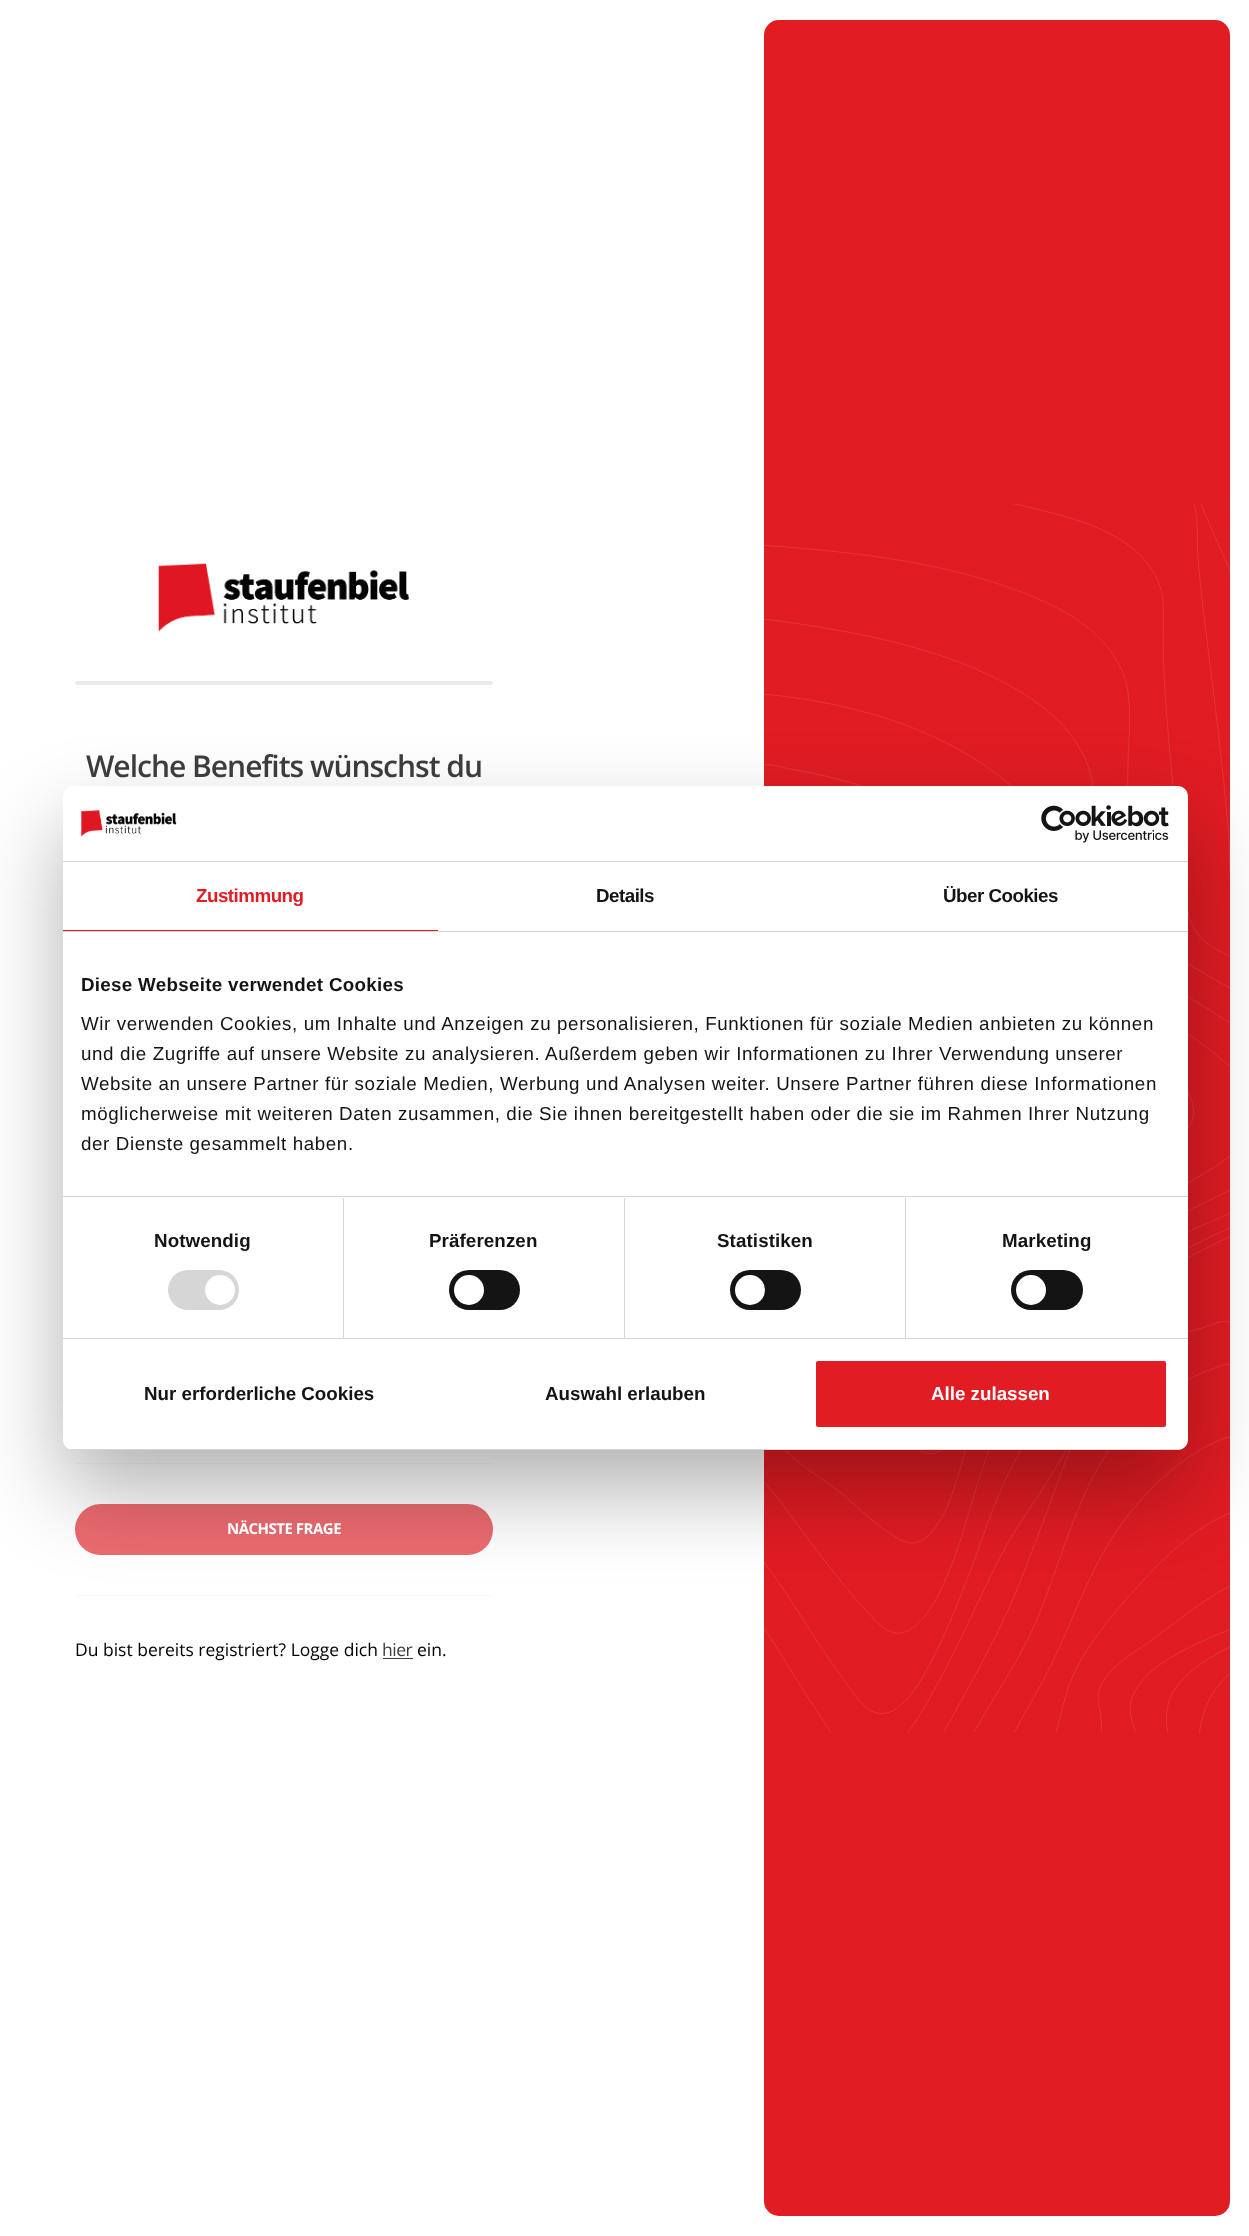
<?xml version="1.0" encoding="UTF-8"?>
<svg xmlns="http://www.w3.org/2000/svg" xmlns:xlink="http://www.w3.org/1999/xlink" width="1249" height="2236">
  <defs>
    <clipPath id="clip1"><rect x="63" y="786" width="1125" height="664" rx="10" /></clipPath>
  </defs>
  <rect width="100%" height="100%" fill="#ffffff" />
  <image x="158" y="563" width="251" height="69" xlink:href="image1.png" />
  <rect x="75" y="681" width="418" height="4" rx="2" fill="#e9ecef" />
  <rect x="75" y="1463" width="418" height="1" fill="#f7f8f9" />
  <rect x="75" y="1504" width="418" height="51" rx="25.5" fill="#ec6b70" />
  <rect x="75" y="1595" width="418" height="1" fill="#f7f8f9" />
  <rect x="383" y="1658" width="30" height="1" fill="#3c3c3c" />
  <rect x="764" y="20" width="466" height="2196" rx="15" fill="#e11c23" />
  <image x="764" y="504" width="466" height="1229" xlink:href="image2.png" />
  <rect x="63" y="826" width="1125" height="664" rx="10" fill="#000000" fill-opacity="0.3" filter="blur(42.5px)" />
  <rect x="63" y="786" width="1125" height="664" rx="10" fill="#ffffff" />
  <rect x="63" y="861" width="1125" height="1" fill="#d6d6d6" />
  <image x="81" y="810" width="96" height="27" xlink:href="image3.png" />
  <image x="1041" y="805" width="128" height="38" xlink:href="image4.png" />
  <rect x="63" y="931" width="1125" height="1" fill="#d6d6d6" />
  <rect x="63" y="930" width="375" height="1" fill="#e11c23" />
  <rect x="63" y="1196" width="1125" height="1" fill="#d6d6d6" />
  <rect x="63" y="1338" width="1125" height="1" fill="#d6d6d6" />
  <rect x="343" y="1198" width="1" height="140" fill="#d6d6d6" />
  <rect x="168" y="1270" width="71" height="40" rx="20" fill="#d6d6d6" />
  <circle cx="220" cy="1290" r="15" fill="#ffffff" />
  <rect x="624" y="1198" width="1" height="140" fill="#d6d6d6" />
  <rect x="449" y="1270" width="71" height="40" rx="20" fill="#141414" />
  <circle cx="469" cy="1290" r="15" fill="#ffffff" />
  <rect x="905" y="1198" width="1" height="140" fill="#d6d6d6" />
  <rect x="730" y="1270" width="71" height="40" rx="20" fill="#141414" />
  <circle cx="750" cy="1290" r="15" fill="#ffffff" />
  <rect x="1011" y="1270" width="72" height="40" rx="20" fill="#141414" />
  <circle cx="1031" cy="1290" r="15" fill="#ffffff" />
  <g clip-path="url(#clip1)">
    <rect x="63" y="1449" width="1125" height="1" fill="#d6d6d6" />
  </g>
  <rect x="814.5" y="1359.5" width="353" height="69" rx="3.5" fill="#e11c23" stroke="#ffffff" stroke-width="3" />
  <text x="86" y="777" style="font-family: Open Sans; font-size: 30px; font-weight: 600; letter-spacing: -1px; fill: #3c3c3c">Welche Benefits wünschst du</text>
  <text x="227" y="1534" style="font-family: Open Sans; font-size: 15px; font-weight: bold; letter-spacing: -0.5px; fill: #ffffff">NÄCHSTE FRAGE</text>
  <text x="75" y="1656" style="font-family: Open Sans; font-size: 17.5px; fill: #000000">Du bist bereits registriert? Logge dich</text>
  <text x="382" y="1656" style="font-family: Open Sans; font-size: 17.5px; letter-spacing: -0.5px; fill: #3c3c3c">hier</text>
  <text x="417" y="1656" style="font-family: Open Sans; font-size: 17.5px; fill: #000000">ein.</text>
  <text x="196" y="902" style="font-family: Liberation Sans; font-size: 18.75px; font-weight: bold; letter-spacing: -0.5px; fill: #e11c23">Zustimmung</text>
  <text x="596" y="902" style="font-family: Liberation Sans; font-size: 18.75px; font-weight: bold; letter-spacing: -0.5px; fill: #141414">Details</text>
  <text x="943" y="902" style="font-family: Liberation Sans; font-size: 18.75px; font-weight: bold; letter-spacing: -0.5px; fill: #141414">Über Cookies</text>
  <text x="81" y="991" style="font-family: Liberation Sans; font-size: 18.75px; font-weight: bold; letter-spacing: 0.3px; fill: #141414">Diese Webseite verwendet Cookies</text>
  <text x="81" y="1030" style="font-family: Liberation Sans; font-size: 18.75px; letter-spacing: 0.62px; fill: #141414">Wir verwenden Cookies, um Inhalte und Anzeigen zu personalisieren, Funktionen für soziale Medien anbieten zu können</text>
  <text x="81" y="1060" style="font-family: Liberation Sans; font-size: 18.75px; letter-spacing: 0.62px; fill: #141414">und die Zugriffe auf unsere Website zu analysieren. Außerdem geben wir Informationen zu Ihrer Verwendung unserer</text>
  <text x="81" y="1090" style="font-family: Liberation Sans; font-size: 18.75px; letter-spacing: 0.62px; fill: #141414">Website an unsere Partner für soziale Medien, Werbung und Analysen weiter. Unsere Partner führen diese Informationen</text>
  <text x="81" y="1120" style="font-family: Liberation Sans; font-size: 18.75px; letter-spacing: 0.62px; fill: #141414">möglicherweise mit weiteren Daten zusammen, die Sie ihnen bereitgestellt haben oder die sie im Rahmen Ihrer Nutzung</text>
  <text x="81" y="1150" style="font-family: Liberation Sans; font-size: 18.75px; letter-spacing: 0.62px; fill: #141414">der Dienste gesammelt haben.</text>
  <text x="154" y="1247" style="font-family: Liberation Sans; font-size: 18.75px; font-weight: bold; letter-spacing: 0.1px; fill: #141414">Notwendig</text>
  <text x="429" y="1247" style="font-family: Liberation Sans; font-size: 18.75px; font-weight: bold; letter-spacing: 0.1px; fill: #141414">Präferenzen</text>
  <text x="717" y="1247" style="font-family: Liberation Sans; font-size: 18.75px; font-weight: bold; letter-spacing: 0.1px; fill: #141414">Statistiken</text>
  <text x="1002" y="1247" style="font-family: Liberation Sans; font-size: 18.75px; font-weight: bold; letter-spacing: 0.1px; fill: #141414">Marketing</text>
  <text x="144" y="1400" style="font-family: Liberation Sans; font-size: 18.75px; font-weight: bold; fill: #141414">Nur erforderliche Cookies</text>
  <text x="545" y="1400" style="font-family: Liberation Sans; font-size: 18.75px; font-weight: bold; fill: #141414">Auswahl erlauben</text>
  <text x="931" y="1400" style="font-family: Liberation Sans; font-size: 18.75px; font-weight: bold; fill: #ffffff">Alle zulassen</text>
</svg>
